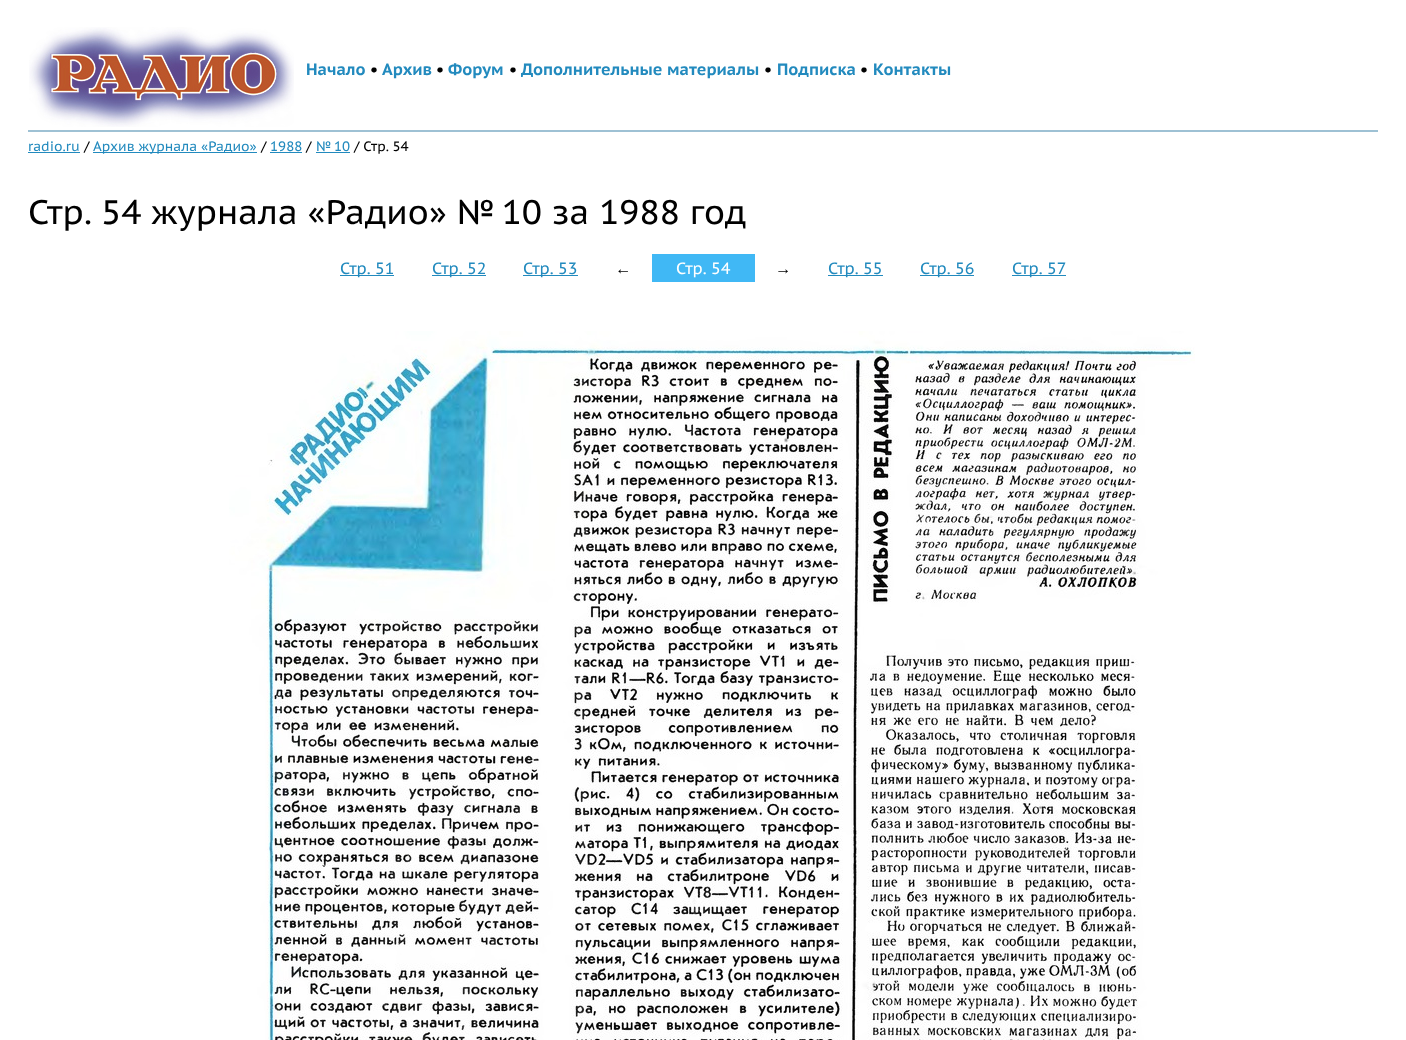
<?xml version="1.0" encoding="UTF-8"?>
<svg xmlns="http://www.w3.org/2000/svg" xmlns:xlink="http://www.w3.org/1999/xlink" width="1406" height="1040">
  <rect width="100%" height="100%" fill="#ffffff" />
  <rect x="28" y="130" width="1350" height="2" fill="#9ec1d4" />
  <image x="29" y="27" width="265" height="100" xlink:href="image1.png" />
  <rect x="28" y="152" width="52" height="1" fill="#228abe" />
  <rect x="93" y="152" width="164" height="1" fill="#228abe" />
  <rect x="270" y="152" width="32" height="1" fill="#228abe" />
  <rect x="316" y="152" width="34" height="1" fill="#228abe" />
  <rect x="340" y="275" width="54" height="1" fill="#228abe" />
  <rect x="432" y="275" width="54" height="1" fill="#228abe" />
  <rect x="523" y="275" width="55" height="1" fill="#228abe" />
  <rect x="652" y="254" width="103" height="28" fill="#40b8f5" />
  <rect x="828" y="275" width="55" height="1" fill="#228abe" />
  <rect x="920" y="275" width="54" height="1" fill="#228abe" />
  <rect x="1012" y="275" width="54" height="1" fill="#228abe" />
  <image x="229" y="331" width="966" height="709" xlink:href="image2.png" />
  <text x="306" y="75" style="font-family: PT Sans Caption; font-size: 16.3px; font-weight: bold; fill: #228abe">Начало</text>
  <text x="370" y="75" style="font-family: PT Sans Caption; font-size: 16.3px; font-weight: bold; fill: #000000">•</text>
  <text x="382" y="75" style="font-family: PT Sans Caption; font-size: 16.3px; font-weight: bold; fill: #228abe">Архив</text>
  <text x="436" y="75" style="font-family: PT Sans Caption; font-size: 16.3px; font-weight: bold; fill: #000000">•</text>
  <text x="448" y="75" style="font-family: PT Sans Caption; font-size: 16.3px; font-weight: bold; fill: #228abe">Форум</text>
  <text x="509" y="75" style="font-family: PT Sans Caption; font-size: 16.3px; font-weight: bold; fill: #000000">•</text>
  <text x="521" y="75" style="font-family: PT Sans Caption; font-size: 16.3px; font-weight: bold; fill: #228abe">Дополнительные материалы</text>
  <text x="764" y="75" style="font-family: PT Sans Caption; font-size: 16.3px; font-weight: bold; fill: #000000">•</text>
  <text x="777" y="75" style="font-family: PT Sans Caption; font-size: 16.3px; font-weight: bold; fill: #228abe">Подписка</text>
  <text x="860" y="75" style="font-family: PT Sans Caption; font-size: 16.3px; font-weight: bold; fill: #000000">•</text>
  <text x="873" y="75" style="font-family: PT Sans Caption; font-size: 16.3px; font-weight: bold; fill: #228abe">Контакты</text>
  <text x="28" y="151" style="font-family: PT Sans Caption; font-size: 13.6px; fill: #228abe">radio.ru</text>
  <text x="84" y="151" style="font-family: PT Sans Caption; font-size: 13.6px; fill: #000000">/</text>
  <text x="93" y="151" style="font-family: PT Sans Caption; font-size: 13.6px; fill: #228abe">Архив журнала «Радио»</text>
  <text x="261" y="151" style="font-family: PT Sans Caption; font-size: 13.6px; fill: #000000">/</text>
  <text x="270" y="151" style="font-family: PT Sans Caption; font-size: 13.6px; fill: #228abe">1988</text>
  <text x="306" y="151" style="font-family: PT Sans Caption; font-size: 13.6px; fill: #000000">/</text>
  <text x="316" y="151" style="font-family: PT Sans Caption; font-size: 13.6px; fill: #228abe">№ 10</text>
  <text x="354" y="151" style="font-family: PT Sans Caption; font-size: 13.6px; fill: #000000">/ Стр. 54</text>
  <text x="28" y="224" style="font-family: PT Sans Caption; font-size: 34px; fill: #000000">Стр. 54 журнала «Радио» № 10 за 1988 год</text>
  <text x="340" y="274" style="font-family: PT Sans Caption; font-size: 16.3px; fill: #228abe">Стр. 51</text>
  <text x="432" y="274" style="font-family: PT Sans Caption; font-size: 16.3px; fill: #228abe">Стр. 52</text>
  <text x="523" y="274" style="font-family: PT Sans Caption; font-size: 16.3px; fill: #228abe">Стр. 53</text>
  <text x="615" y="274" style="font-family: Liberation Sans; font-size: 16.3px; fill: #000000">←</text>
  <text x="676" y="274" style="font-family: PT Sans Caption; font-size: 16.3px; fill: #ffffff">Стр. 54</text>
  <text x="775" y="274" style="font-family: Liberation Sans; font-size: 16.3px; fill: #000000">→</text>
  <text x="828" y="274" style="font-family: PT Sans Caption; font-size: 16.3px; fill: #228abe">Стр. 55</text>
  <text x="920" y="274" style="font-family: PT Sans Caption; font-size: 16.3px; fill: #228abe">Стр. 56</text>
  <text x="1012" y="274" style="font-family: PT Sans Caption; font-size: 16.3px; fill: #228abe">Стр. 57</text>
</svg>
